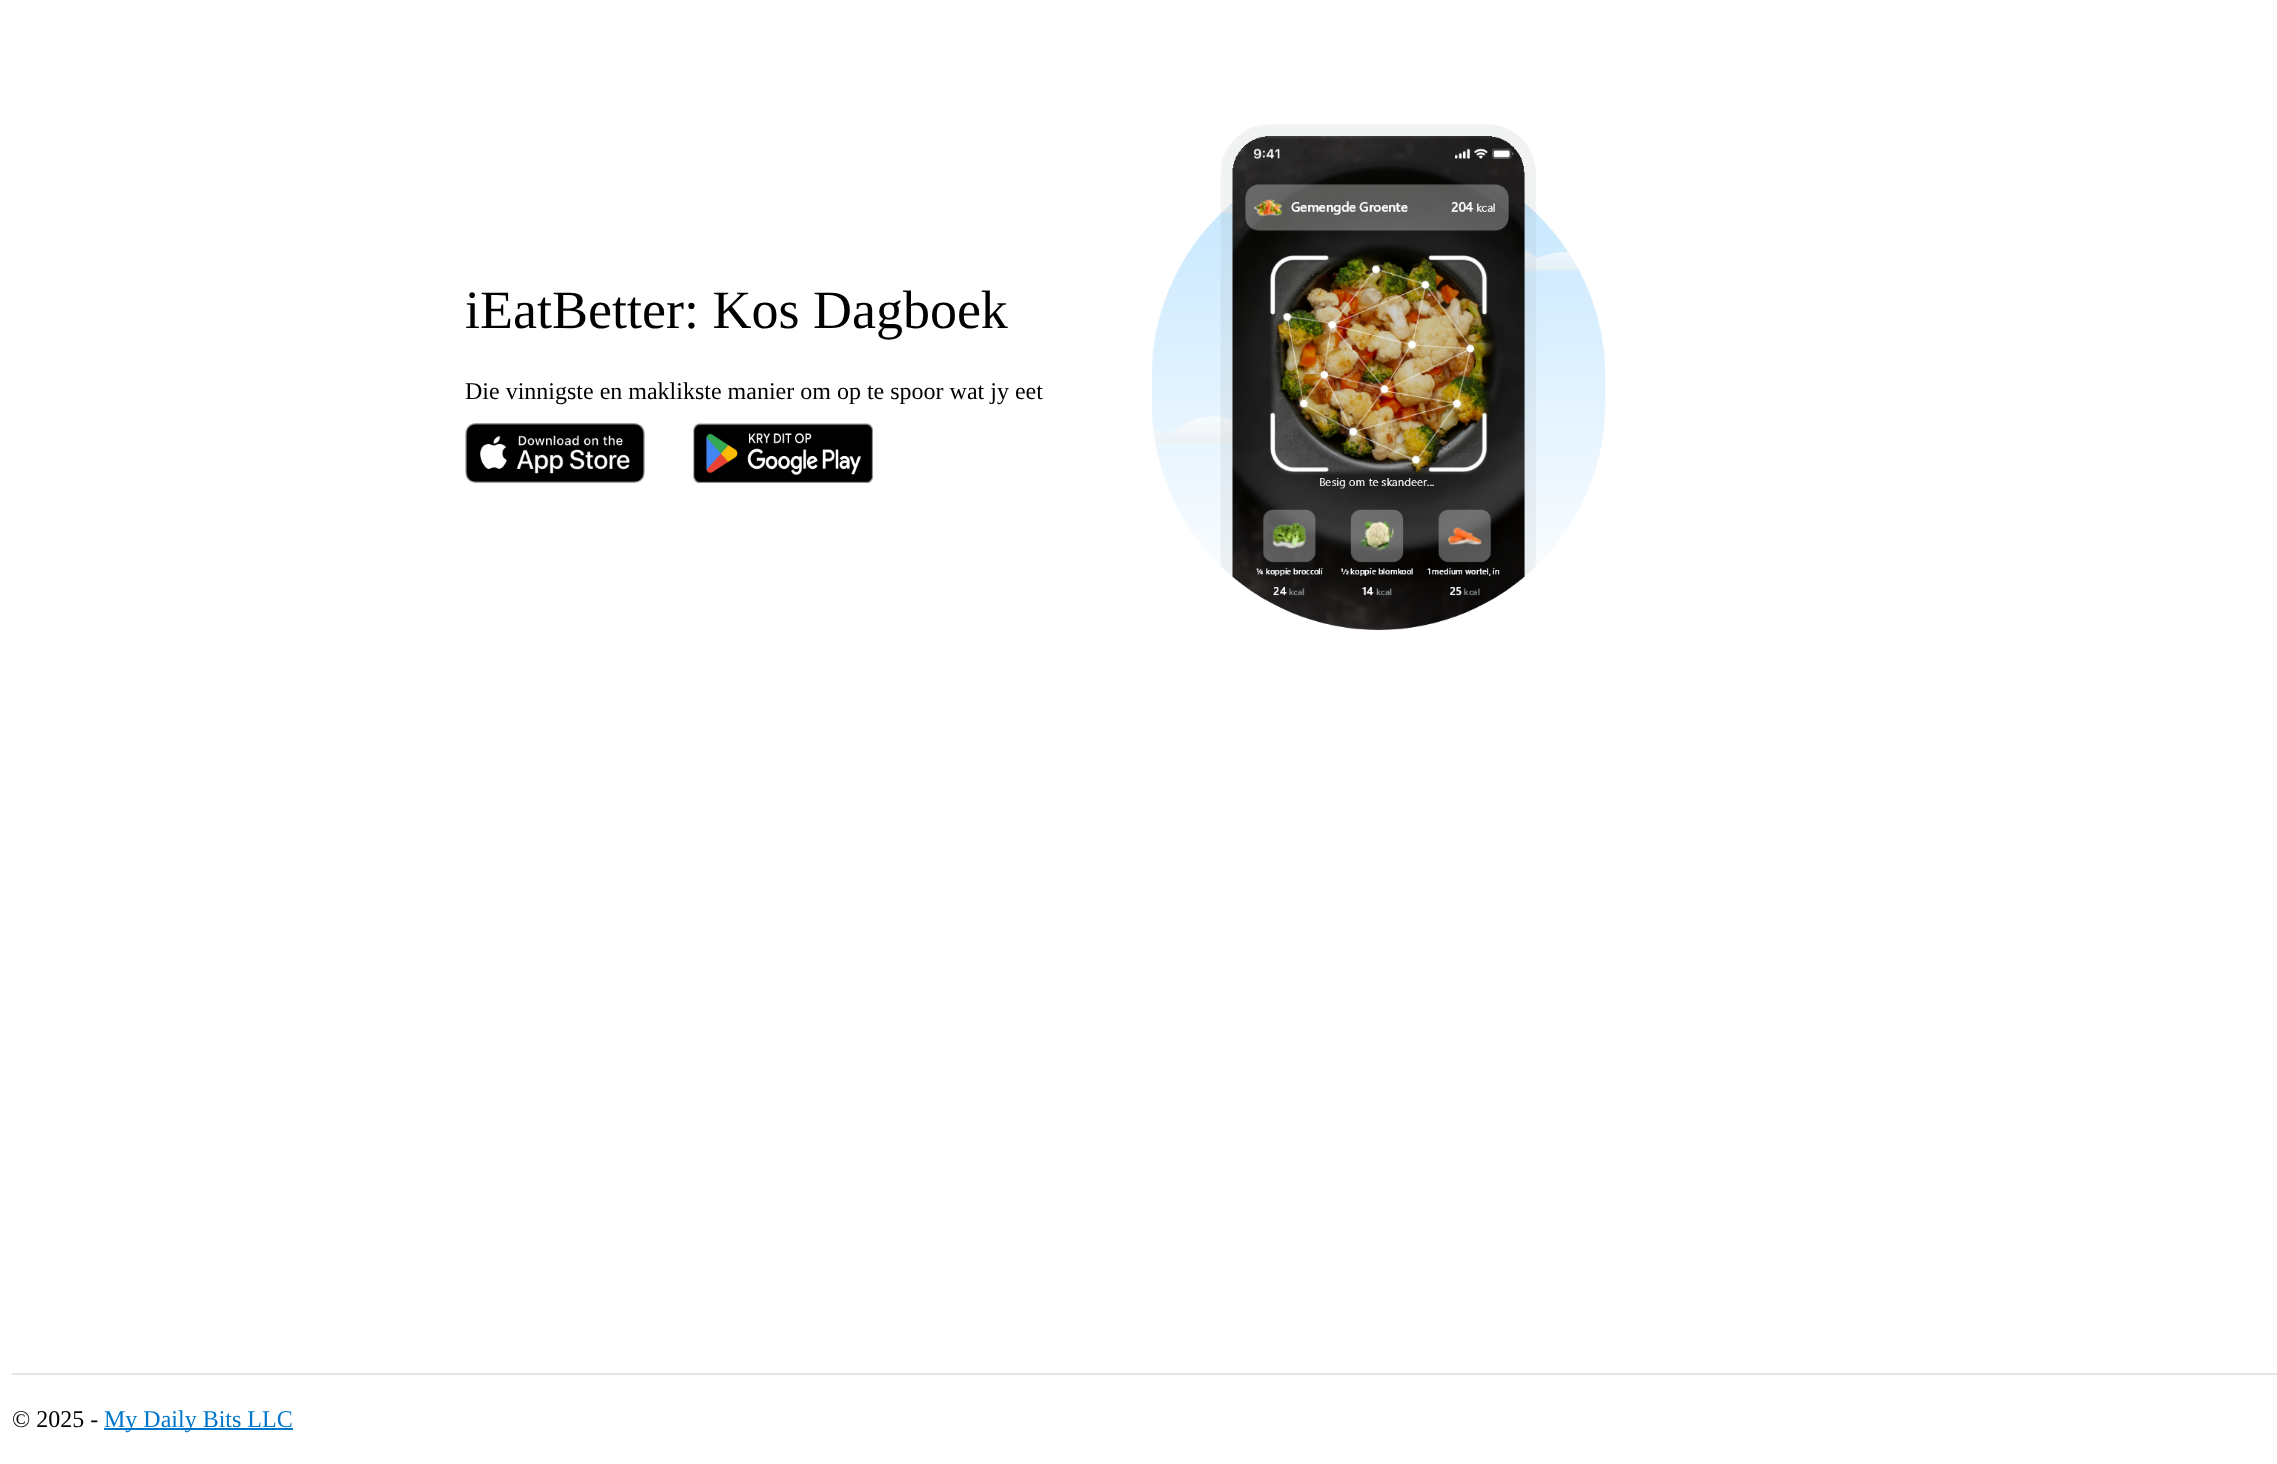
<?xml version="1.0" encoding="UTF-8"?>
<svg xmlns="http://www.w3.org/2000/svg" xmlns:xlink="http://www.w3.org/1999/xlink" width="2277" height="1464">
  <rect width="100%" height="100%" fill="#ffffff" />
  <image x="465" y="423" width="180" height="60" xlink:href="image1.png" />
  <image x="693" y="423" width="180" height="60" xlink:href="image2.png" />
  <image x="1151" y="124" width="455" height="506" xlink:href="image3.png" />
  <rect x="12" y="1373" width="2265" height="2" fill="#e5e5e5" />
  <rect x="104" y="1428" width="189" height="2" fill="#0077cc" />
  <text x="465" y="328" style="font-family: Liberation Serif; font-size: 54px; fill: #000000">iEatBetter: Kos Dagboek</text>
  <text x="465" y="399" style="font-family: Liberation Serif; font-size: 24px; fill: #000000">Die vinnigste en maklikste manier om op te spoor wat jy eet</text>
  <text x="12" y="1427" style="font-family: Liberation Serif; font-size: 24px; fill: #000000">© 2025 -</text>
  <text x="104" y="1427" style="font-family: Liberation Serif; font-size: 24px; fill: #0077cc">My Daily Bits LLC</text>
</svg>
